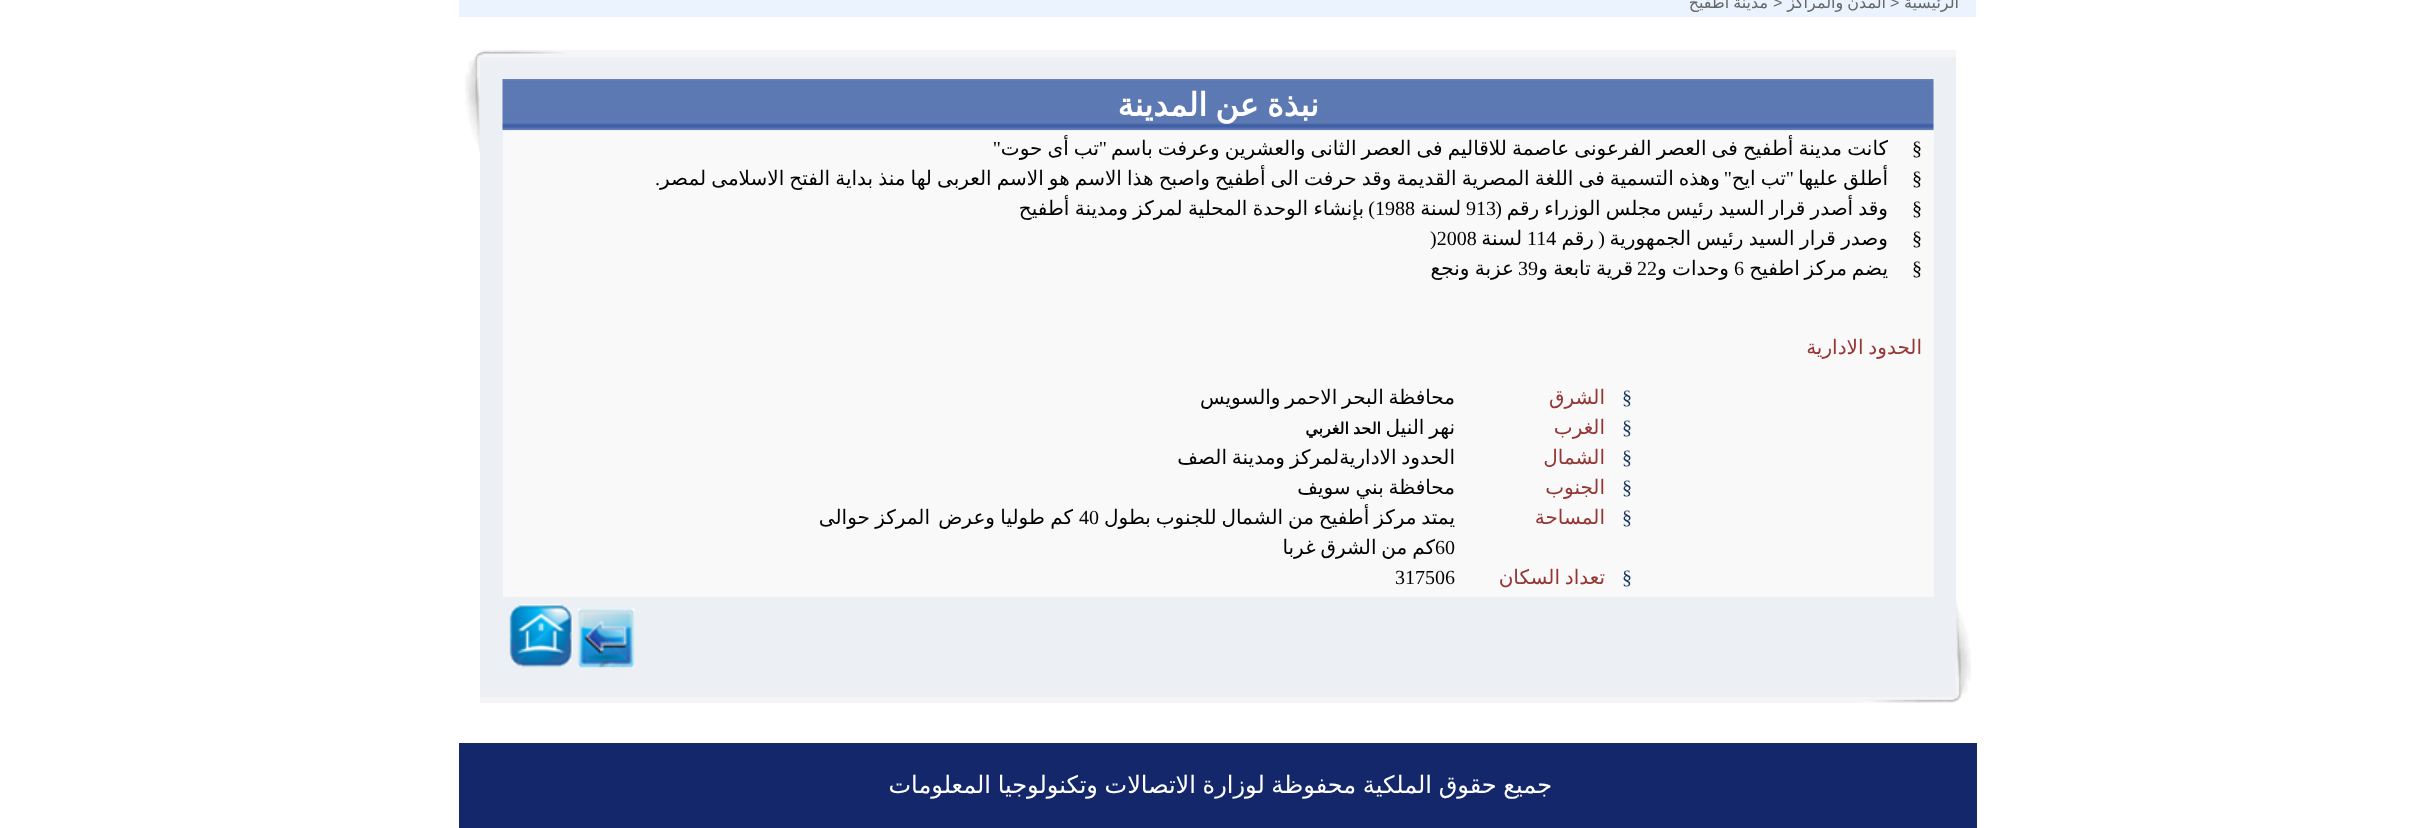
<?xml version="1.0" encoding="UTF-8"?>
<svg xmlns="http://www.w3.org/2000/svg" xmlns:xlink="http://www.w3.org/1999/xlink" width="2436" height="828">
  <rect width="100%" height="100%" fill="#ffffff" />
  <rect x="459" width="1517" height="17" fill="#ebf3ff" />
  <rect x="480" y="50" width="1476" height="7" fill="#f5f5f5" />
  <image x="480" y="50" width="84" height="6" xlink:href="image1.png" />
  <image x="475" y="52" width="5" height="5" xlink:href="image2.png" />
  <rect x="480" y="57" width="1476" height="640" fill="#eceff3" />
  <image x="502" y="79" width="1432" height="51" xlink:href="image3.png" />
  <rect x="503" y="131" width="1431" height="466" fill="#f9f9f9" />
  <image x="577" y="608" width="58" height="60" xlink:href="image4.png" />
  <image x="509" y="604" width="64" height="64" xlink:href="image5.png" />
  <image x="465" y="56" width="15" height="97" xlink:href="image6.png" />
  <image x="1956" y="601" width="15" height="96" xlink:href="image7.png" />
  <image x="1956" y="697" width="5" height="5" xlink:href="image8.png" />
  <rect x="480" y="697" width="1476" height="6" fill="#f5f5f5" />
  <image x="1863" y="698" width="93" height="5" xlink:href="image9.png" />
  <rect x="459" y="743" width="1518" height="85" fill="#14276b" />
  <text x="1959" y="8" style="font-family: DejaVu Sans; font-size: 16px; direction: rtl; fill: #666666">الرئيسية</text>
  <text x="1890" y="8" style="font-family: Liberation Sans; font-size: 16px; fill: #666666">&gt;</text>
  <text x="1886" y="8" word-spacing="-1" style="font-family: DejaVu Sans; font-size: 16px; direction: rtl; fill: #666666">المدن والمراكز</text>
  <text x="1773" y="8" style="font-family: Liberation Sans; font-size: 16px; fill: #666666">&gt;</text>
  <text x="1768" y="8" word-spacing="-1" style="font-family: DejaVu Sans; font-size: 16px; direction: rtl; fill: #666666">مدينة أطفيح</text>
  <text x="1319" y="116" word-spacing="-2" style="font-family: DejaVu Sans; font-size: 32px; font-weight: bold; direction: rtl; fill: #ffffff">نبذة عن المدينة</text>
  <text x="1912" y="155" style="font-family: Liberation Serif; font-size: 20px; fill: #000000">§</text>
  <text x="1888" y="155" word-spacing="-1.25" style="font-family: DejaVu Sans; font-size: 20px; direction: rtl; fill: #000000">كانت مدينة أطفيح فى العصر الفرعونى عاصمة للاقاليم فى العصر الثانى والعشرين وعرفت باسم</text>
  <text x="1099" y="155" word-spacing="-1.25" style="font-family: DejaVu Sans; font-size: 20px; direction: rtl; fill: #000000">تب أى حوت</text>
  <text x="1107" y="155" style="font-family: Liberation Serif; font-size: 20px; direction: rtl; fill: #000000">"</text>
  <text x="1001" y="155" style="font-family: Liberation Serif; font-size: 20px; direction: rtl; fill: #000000">"</text>
  <text x="1888" y="185" word-spacing="-1.25" style="font-family: DejaVu Sans; font-size: 20px; direction: rtl; fill: #000000">أطلق عليها</text>
  <text x="1786" y="185" word-spacing="-1.25" style="font-family: DejaVu Sans; font-size: 20px; direction: rtl; fill: #000000">تب ايح</text>
  <text x="1720" y="185" word-spacing="-1.25" style="font-family: DejaVu Sans; font-size: 20px; direction: rtl; fill: #000000">وهذه التسمية فى اللغة المصرية القديمة وقد حرفت الى أطفيح واصبح هذا الاسم هو الاسم العربى لها منذ بداية الفتح الاسلامى لمصر</text>
  <text x="1912" y="185" style="font-family: Liberation Serif; font-size: 20px; fill: #000000">§</text>
  <text x="1794" y="185" style="font-family: Liberation Serif; font-size: 20px; direction: rtl; fill: #000000">"</text>
  <text x="1732" y="185" style="font-family: Liberation Serif; font-size: 20px; direction: rtl; fill: #000000">"</text>
  <text x="660" y="185" style="font-family: Liberation Serif; font-size: 20px; direction: rtl; fill: #000000">.</text>
  <text x="1912" y="215" style="font-family: Liberation Serif; font-size: 20px; fill: #000000">§</text>
  <text x="1888" y="215" word-spacing="-1.25" style="font-family: DejaVu Sans; font-size: 20px; direction: rtl; fill: #000000">وقد أصدر قرار السيد رئيس مجلس الوزراء رقم</text>
  <text x="1502" y="215" style="font-family: Liberation Serif; font-size: 20px; direction: rtl; fill: #000000">(</text>
  <text x="1466" y="215" style="font-family: Liberation Serif; font-size: 20px; fill: #000000">913</text>
  <text x="1461" y="215" style="font-family: DejaVu Sans; font-size: 20px; direction: rtl; fill: #000000">لسنة</text>
  <text x="1375" y="215" style="font-family: Liberation Serif; font-size: 20px; fill: #000000">1988</text>
  <text x="1364" y="215" word-spacing="-1" style="font-family: DejaVu Sans; font-size: 20px; direction: rtl; fill: #000000">بإنشاء الوحدة المحلية لمركز ومدينة أطفيح</text>
  <text x="1375" y="215" style="font-family: Liberation Serif; font-size: 20px; direction: rtl; fill: #000000">)</text>
  <text x="1912" y="245" style="font-family: Liberation Serif; font-size: 20px; fill: #000000">§</text>
  <text x="1888" y="245" word-spacing="-1" style="font-family: DejaVu Sans; font-size: 20px; direction: rtl; fill: #000000">وصدر قرار السيد رئيس الجمهورية</text>
  <text x="1605" y="245" style="font-family: Liberation Serif; font-size: 20px; direction: rtl; fill: #000000">(</text>
  <text x="1594" y="245" style="font-family: DejaVu Sans; font-size: 20px; direction: rtl; fill: #000000">رقم</text>
  <text x="1527" y="245" style="font-family: Liberation Serif; font-size: 20px; fill: #000000">114</text>
  <text x="1522" y="245" style="font-family: DejaVu Sans; font-size: 20px; direction: rtl; fill: #000000">لسنة</text>
  <text x="1430" y="245" style="font-family: Liberation Serif; font-size: 20px; fill: #000000">)2008</text>
  <text x="1912" y="275" style="font-family: Liberation Serif; font-size: 20px; fill: #000000">§</text>
  <text x="1888" y="275" word-spacing="-1.5" style="font-family: DejaVu Sans; font-size: 20px; direction: rtl; fill: #000000">يضم مركز اطفيح</text>
  <text x="1734" y="275" style="font-family: Liberation Serif; font-size: 20px; fill: #000000">6</text>
  <text x="1729" y="275" word-spacing="-1" style="font-family: DejaVu Sans; font-size: 20px; direction: rtl; fill: #000000">وحدات و</text>
  <text x="1637" y="275" style="font-family: Liberation Serif; font-size: 20px; fill: #000000">22</text>
  <text x="1518" y="275" style="font-family: Liberation Serif; font-size: 20px; fill: #000000">39</text>
  <text x="1633" y="275" word-spacing="-1" style="font-family: DejaVu Sans; font-size: 20px; direction: rtl; fill: #000000">قرية تابعة و</text>
  <text x="1514" y="275" word-spacing="-1" style="font-family: DejaVu Sans; font-size: 20px; direction: rtl; fill: #000000">عزبة ونجع</text>
  <text x="1922" y="354" word-spacing="-1.5" style="font-family: DejaVu Sans; font-size: 20px; direction: rtl; fill: #943634">الحدود الادارية</text>
  <text x="1622" y="404" style="font-family: Liberation Serif; font-size: 20px; fill: #17365d">§</text>
  <text x="1605" y="404" style="font-family: DejaVu Sans; font-size: 20px; direction: rtl; fill: #943634">الشرق</text>
  <text x="1455" y="404" word-spacing="-1.5" style="font-family: DejaVu Sans; font-size: 20px; direction: rtl; fill: #000000">محافظة البحر الاحمر والسويس</text>
  <text x="1622" y="434" style="font-family: Liberation Serif; font-size: 20px; fill: #17365d">§</text>
  <text x="1605" y="434" style="font-family: DejaVu Sans; font-size: 20px; direction: rtl; fill: #943634">الغرب</text>
  <text x="1455" y="434" word-spacing="-1.5" style="font-family: DejaVu Sans; font-size: 20px; direction: rtl; fill: #000000">نهر النيل</text>
  <text x="1381" y="434" word-spacing="-1" style="font-family: DejaVu Sans; font-size: 16px; font-weight: bold; direction: rtl; fill: #000000">الحد الغربي</text>
  <text x="1622" y="464" style="font-family: Liberation Serif; font-size: 20px; fill: #17365d">§</text>
  <text x="1605" y="464" style="font-family: DejaVu Sans; font-size: 20px; direction: rtl; fill: #943634">الشمال</text>
  <text x="1455" y="464" word-spacing="-1.5" style="font-family: DejaVu Sans; font-size: 20px; direction: rtl; fill: #000000">الحدود الاداريةلمركز ومدينة الصف</text>
  <text x="1622" y="494" style="font-family: Liberation Serif; font-size: 20px; fill: #17365d">§</text>
  <text x="1605" y="494" style="font-family: DejaVu Sans; font-size: 20px; direction: rtl; fill: #943634">الجنوب</text>
  <text x="1455" y="494" word-spacing="-1.5" style="font-family: DejaVu Sans; font-size: 20px; direction: rtl; fill: #000000">محافظة بني سويف</text>
  <text x="1622" y="524" style="font-family: Liberation Serif; font-size: 20px; fill: #17365d">§</text>
  <text x="1605" y="524" style="font-family: DejaVu Sans; font-size: 20px; direction: rtl; fill: #943634">المساحة</text>
  <text x="1455" y="524" word-spacing="-1.5" style="font-family: DejaVu Sans; font-size: 20px; direction: rtl; fill: #000000">يمتد مركز أطفيح من الشمال للجنوب بطول</text>
  <text x="1079" y="524" style="font-family: Liberation Serif; font-size: 20px; fill: #000000">40</text>
  <text x="1073" y="524" word-spacing="-1" style="font-family: DejaVu Sans; font-size: 20px; direction: rtl; fill: #000000">كم طوليا وعرض</text>
  <text x="930" y="524" word-spacing="-1" style="font-family: DejaVu Sans; font-size: 20px; direction: rtl; fill: #000000">المركز حوالى</text>
  <text x="1435" y="554" word-spacing="-1.5" style="font-family: DejaVu Sans; font-size: 20px; direction: rtl; fill: #000000">كم من الشرق غربا</text>
  <text x="1435" y="554" style="font-family: Liberation Serif; font-size: 20px; fill: #000000">60</text>
  <text x="1622" y="584" style="font-family: Liberation Serif; font-size: 20px; fill: #17365d">§</text>
  <text x="1605" y="584" word-spacing="-1.5" style="font-family: DejaVu Sans; font-size: 20px; direction: rtl; fill: #943634">تعداد السكان</text>
  <text x="1395" y="584" style="font-family: Liberation Serif; font-size: 20px; fill: #000000">317506</text>
  <text x="1552" y="793" word-spacing="-1" style="font-family: DejaVu Sans; font-size: 24px; direction: rtl; fill: #ffffff">جميع حقوق الملكية محفوظة لوزارة الاتصالات وتكنولوجيا المعلومات</text>
</svg>
